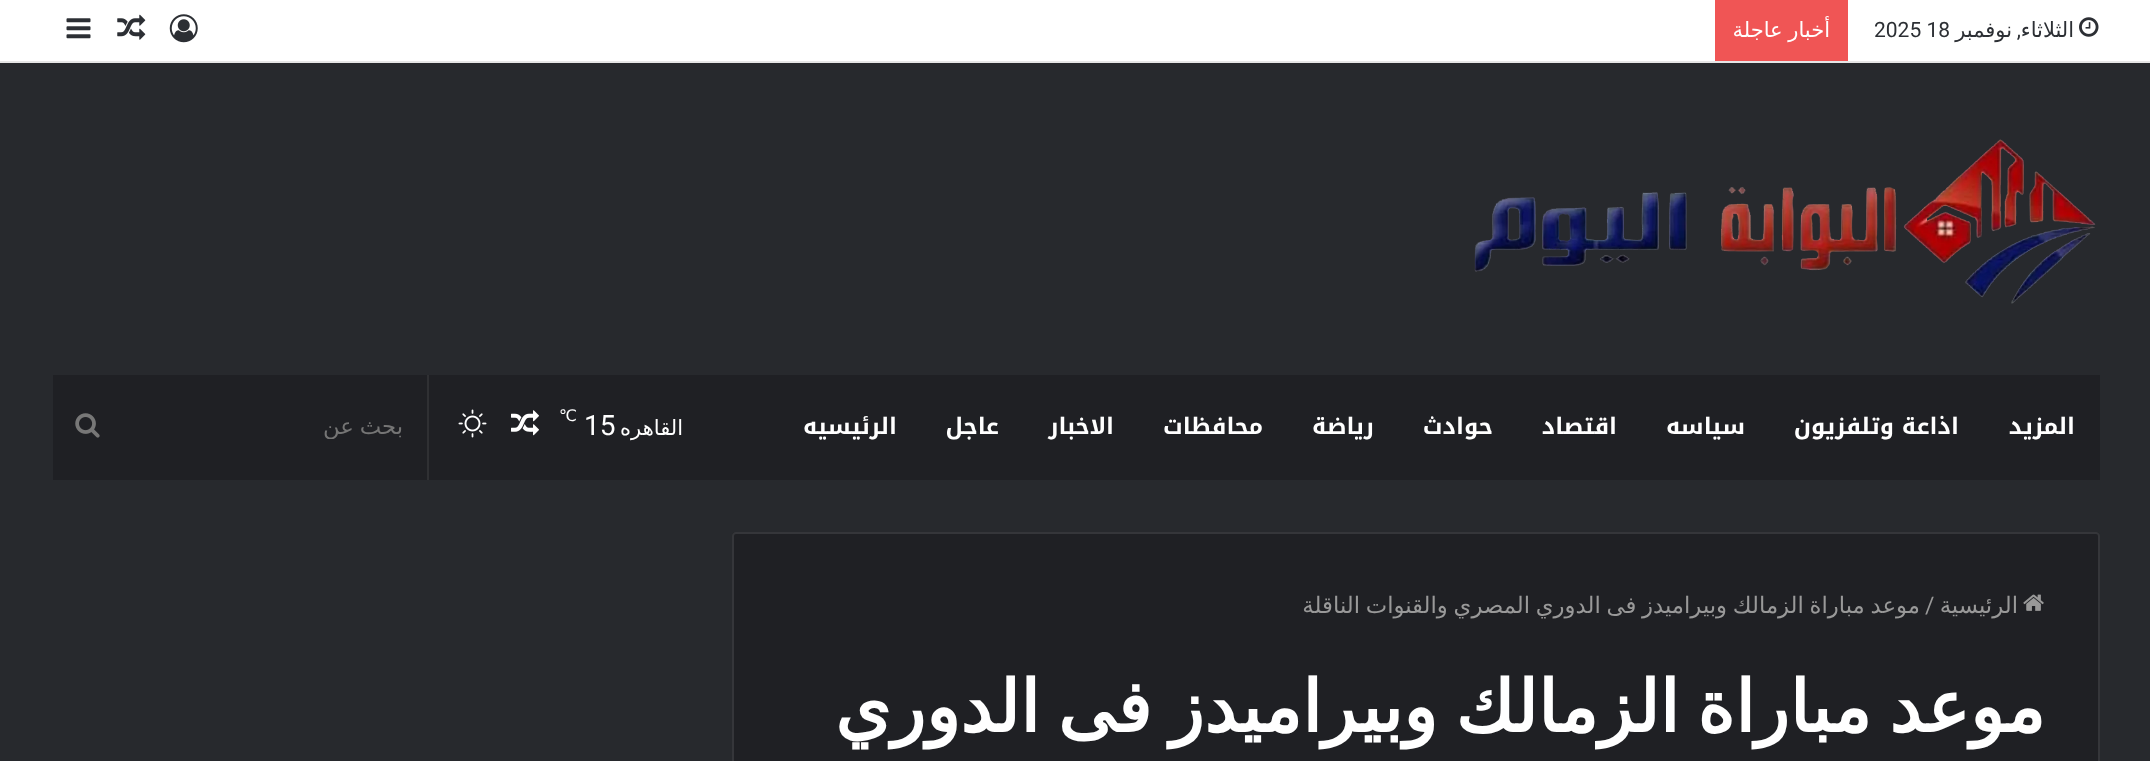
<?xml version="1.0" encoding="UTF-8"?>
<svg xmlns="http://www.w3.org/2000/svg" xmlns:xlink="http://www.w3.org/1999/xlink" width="2150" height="761">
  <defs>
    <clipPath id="clip1"><rect x="114" y="413" width="290" height="26" /></clipPath>
  </defs>
  <rect width="100%" height="100%" fill="#27292d" />
  <rect width="2150" height="61" fill="#ffffff" />
  <rect y="61" width="2150" height="2" fill="#e6e6e6" />
  <image x="2079" y="17" width="20" height="20" xlink:href="image1.png" />
  <rect x="1715" width="133" height="61" fill="#f05555" />
  <image x="169" y="14" width="29" height="29" xlink:href="image2.png" />
  <image x="117" y="14" width="29" height="26" xlink:href="image3.png" />
  <image x="66" y="18" width="25" height="21" xlink:href="image4.png" />
  <image x="1474" y="139" width="622" height="165" xlink:href="image5.png" />
  <rect x="53" y="375" width="2047" height="105" fill="#1f2024" />
  <image x="511" y="410" width="28" height="26" xlink:href="image6.png" />
  <image x="458" y="409" width="29" height="29" xlink:href="image7.png" />
  <rect x="427" y="375" width="2" height="105" fill="#2f3033" />
  <image x="75" y="413" width="25" height="25" xlink:href="image8.png" />
  <path d="M 736 532 h 1360 c 2 0 4 2 4 4 v 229 h -1368 v -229 c 0 -2 2 -4 4 -4 z" fill="#1f2024" />
  <path d="M 736 533 h 1360 c 1.5 0 3 1.5 3 3 v 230 h -1366 v -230 c 0 -1.5 1.5 -3 3 -3 z" fill="none" stroke="#ffffff" stroke-opacity="0.1" stroke-width="2" />
  <image x="2023" y="594" width="21" height="17" xlink:href="image9.png" />
  <text x="2074" y="37" style="font-family: DejaVu Sans; font-size: 21px; direction: rtl; fill: #2c2f34">الثلاثاء</text>
  <text x="2021" y="37" style="font-family: Roboto; font-size: 21px; direction: rtl; fill: #2c2f34">,</text>
  <text x="2012" y="37" style="font-family: DejaVu Sans; font-size: 21px; direction: rtl; fill: #2c2f34">نوفمبر</text>
  <text x="1874" y="37" style="font-family: Roboto; font-size: 21px; fill: #2c2f34">2025 18</text>
  <text x="1830" y="37" word-spacing="-1" style="font-family: DejaVu Sans; font-size: 21px; direction: rtl; fill: #ffffff">أخبار عاجلة</text>
  <text x="2075" y="434" style="font-family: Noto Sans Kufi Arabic; font-size: 22.75px; font-weight: bold; direction: rtl; fill: #ffffff">المزيد</text>
  <text x="1959" y="434" style="font-family: Noto Sans Kufi Arabic; font-size: 22.75px; font-weight: bold; direction: rtl; fill: #ffffff">اذاعة وتلفزيون</text>
  <text x="1745" y="434" style="font-family: Noto Sans Kufi Arabic; font-size: 22.75px; font-weight: bold; direction: rtl; fill: #ffffff">سياسه</text>
  <text x="1617" y="434" style="font-family: Noto Sans Kufi Arabic; font-size: 22.75px; font-weight: bold; direction: rtl; fill: #ffffff">اقتصاد</text>
  <text x="1493" y="434" style="font-family: Noto Sans Kufi Arabic; font-size: 22.75px; font-weight: bold; direction: rtl; fill: #ffffff">حوادث</text>
  <text x="1374" y="434" style="font-family: Noto Sans Kufi Arabic; font-size: 22.75px; font-weight: bold; direction: rtl; fill: #ffffff">رياضة</text>
  <text x="1263" y="434" style="font-family: Noto Sans Kufi Arabic; font-size: 22.75px; font-weight: bold; direction: rtl; fill: #ffffff">محافظات</text>
  <text x="1114" y="434" style="font-family: Noto Sans Kufi Arabic; font-size: 22.75px; font-weight: bold; direction: rtl; fill: #ffffff">الاخبار</text>
  <text x="999" y="434" style="font-family: Noto Sans Kufi Arabic; font-size: 22.75px; font-weight: bold; direction: rtl; fill: #ffffff">عاجل</text>
  <text x="897" y="434" style="font-family: Noto Sans Kufi Arabic; font-size: 22.75px; font-weight: bold; direction: rtl; fill: #ffffff">الرئيسيه</text>
  <text x="683" y="435" style="font-family: DejaVu Sans; font-size: 21px; direction: rtl; fill: #ffffff">القاهره</text>
  <text x="584" y="435" style="font-family: Roboto; font-size: 28px; fill: #ffffff">15</text>
  <text x="559" y="421" style="font-family: DejaVu Sans; font-size: 16px; fill: #ffffff">℃</text>
  <g clip-path="url(#clip1)">
    <text x="403" y="434" word-spacing="-1.5" style="font-family: DejaVu Sans; font-size: 22.75px; direction: rtl; fill: #757575">بحث عن</text>
  </g>
  <text x="2018" y="613" style="font-family: DejaVu Sans; font-size: 22.75px; direction: rtl; fill: #999999">الرئيسية</text>
  <text x="1925" y="613" style="font-family: Roboto; font-size: 22.75px; fill: #999999">/</text>
  <text x="1920" y="613" word-spacing="-1.5" style="font-family: DejaVu Sans; font-size: 22.75px; direction: rtl; fill: #999999">موعد مباراة الزمالك وبيراميدز فى الدوري المصري والقنوات الناقلة</text>
  <text x="2045" y="732" word-spacing="-5" style="font-family: DejaVu Sans; font-size: 71.75px; font-weight: bold; direction: rtl; fill: #ffffff">موعد مباراة الزمالك وبيراميدز فى الدوري</text>
</svg>
